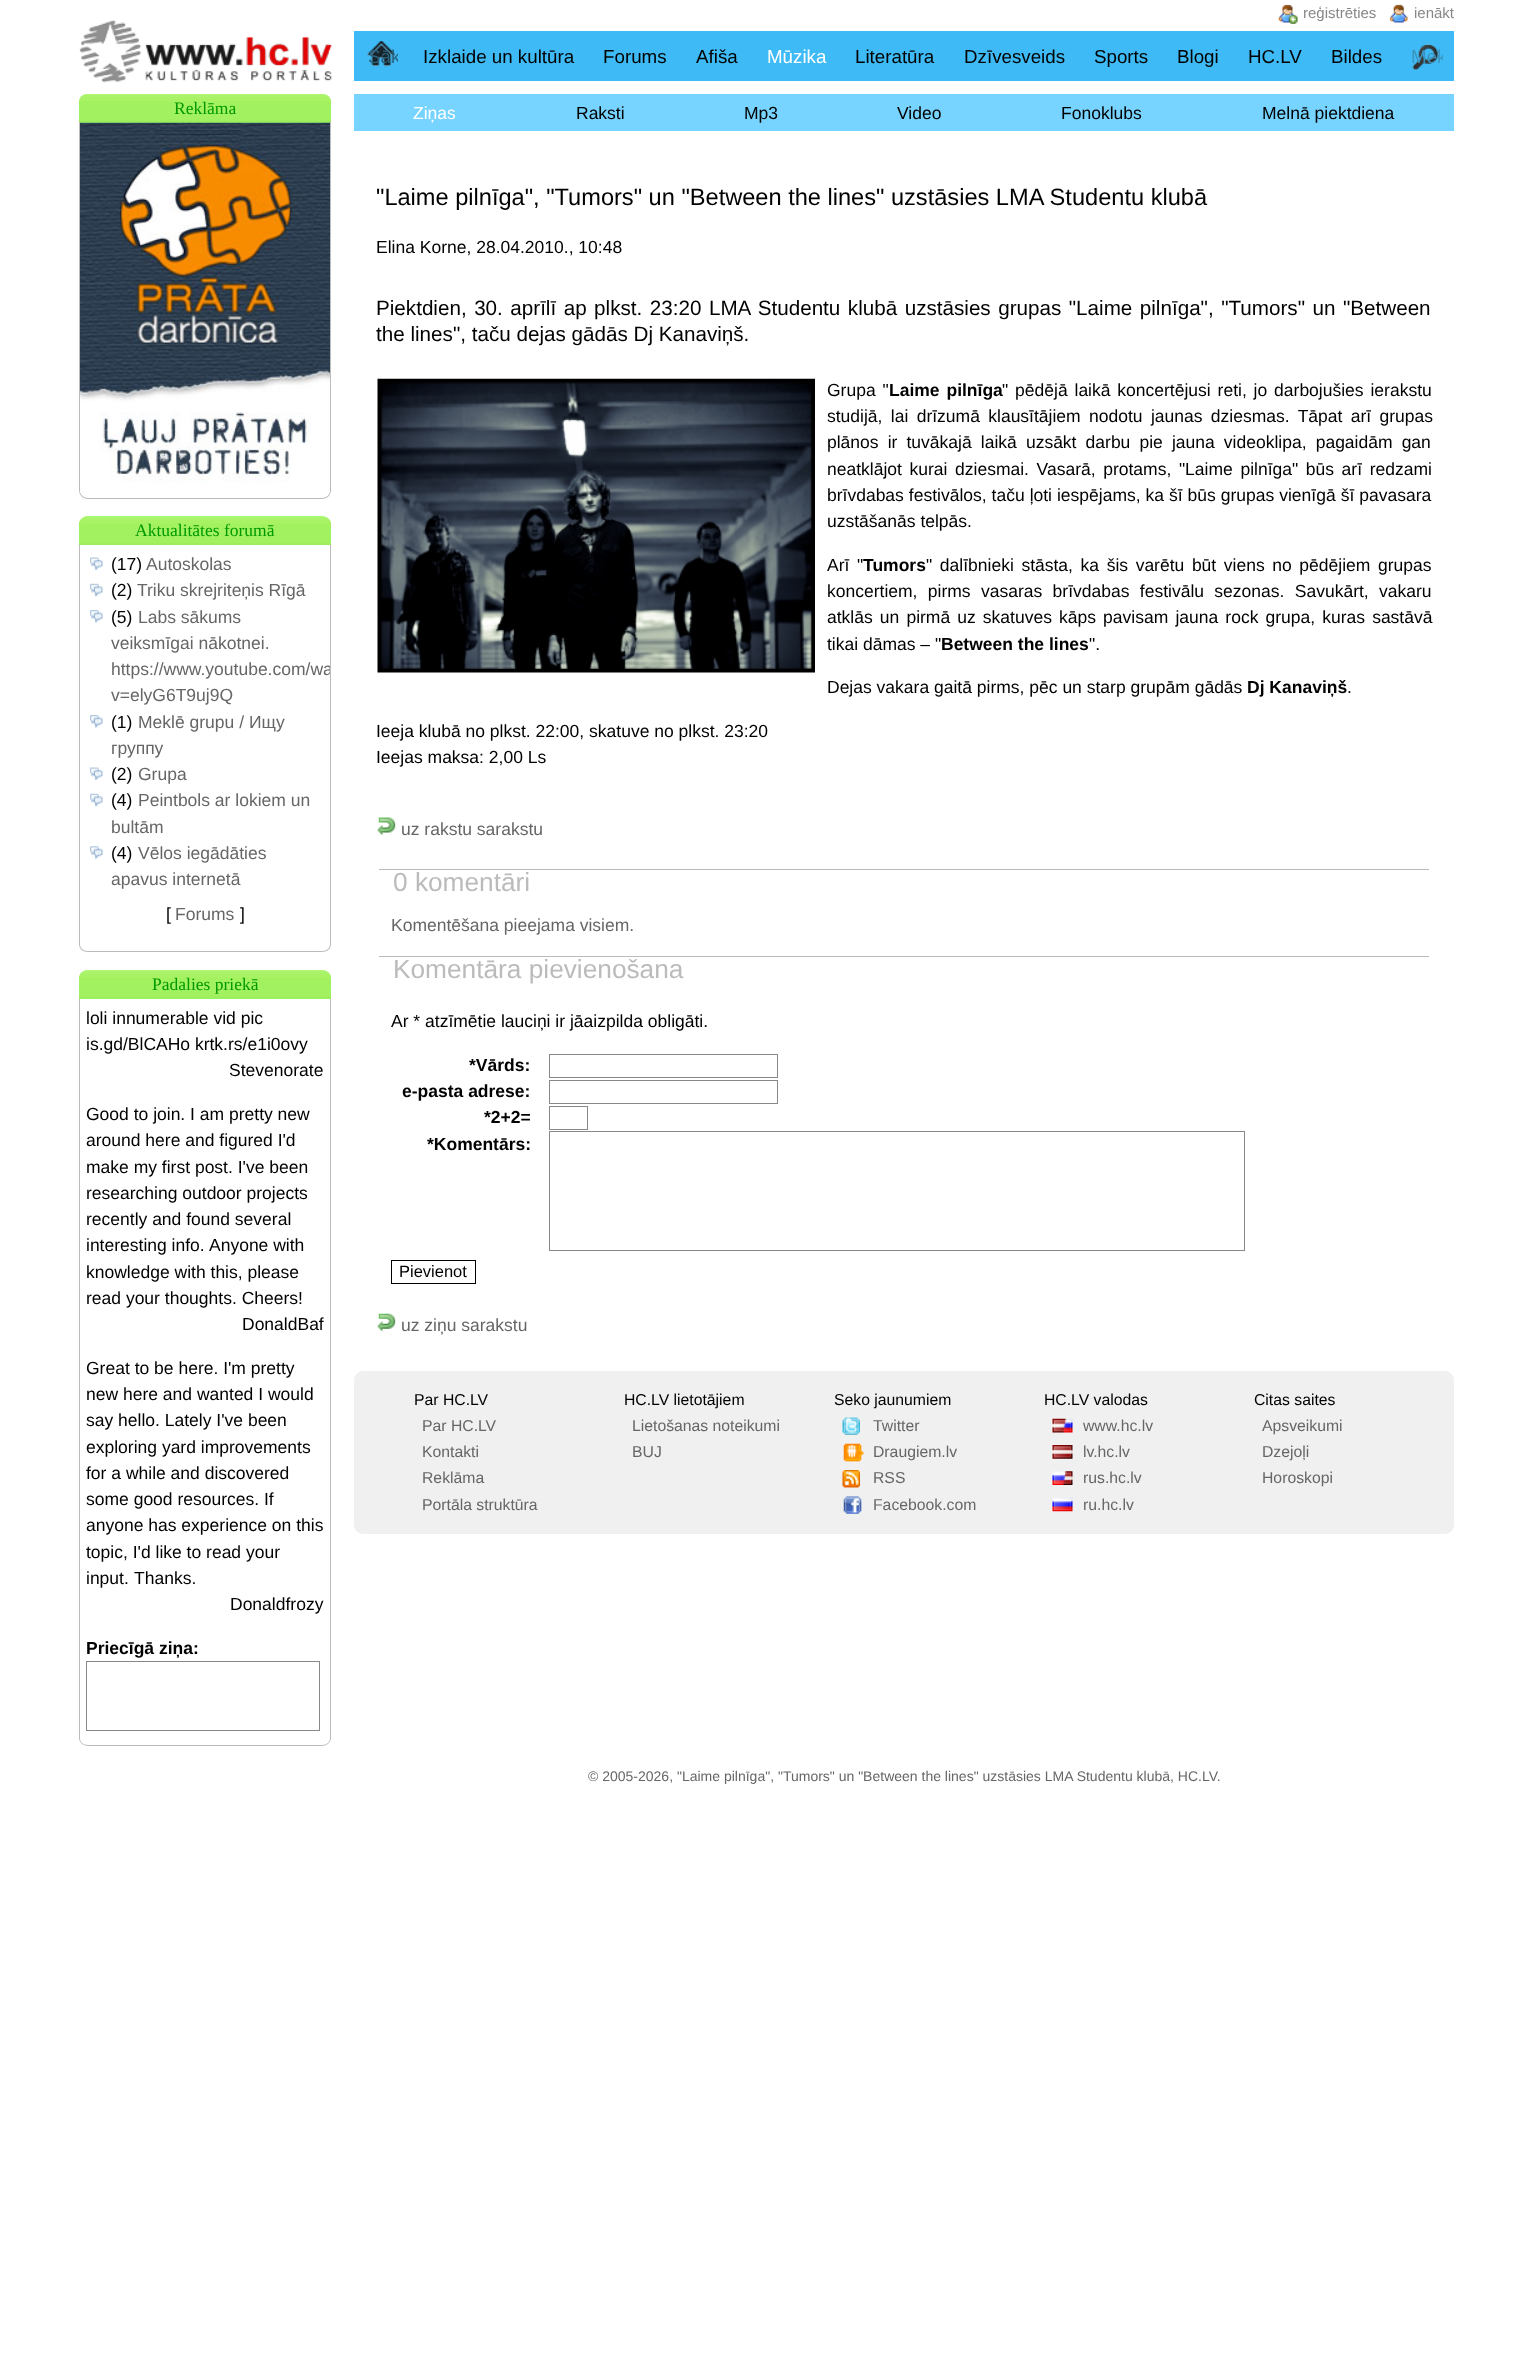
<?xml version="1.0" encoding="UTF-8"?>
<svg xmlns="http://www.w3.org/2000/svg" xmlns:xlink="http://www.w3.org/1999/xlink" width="1532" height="2373">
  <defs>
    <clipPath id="clip1"><rect x="365" y="31" width="33" height="50" /></clipPath>
    <clipPath id="clip2"><rect x="1408" y="31" width="35" height="50" /></clipPath>
    <clipPath id="clip3"><path d="M 80 545 h 250 v 398 c 0 4.5 -3.5 8 -8 8 h -234 c -4.5 0 -8 -3.5 -8 -8 z" /></clipPath>
  </defs>
  <rect width="100%" height="100%" fill="#ffffff" />
  <image x="1278" y="4" width="20" height="20" xlink:href="image1.png" />
  <image x="1389" y="4" width="19" height="19" xlink:href="image2.png" />
  <image x="79" y="20" width="253" height="63" xlink:href="image3.png" />
  <rect x="354" y="31" width="1100" height="50" fill="#3ebbf6" />
  <image x="367" y="41" width="28" height="26" xlink:href="image4.png" />
  <image x="1412" y="43" width="27" height="27" xlink:href="image5.png" />
  <rect x="354" y="94" width="1100" height="37" fill="#77d3ff" />
  <image x="377" y="378" width="438" height="295" xlink:href="image6.png" />
  <image x="377" y="817" width="19" height="18" xlink:href="image7.png" />
  <rect x="379" y="869" width="1050" height="1" fill="#bbbbbb" />
  <rect x="379" y="956" width="1050" height="1" fill="#bbbbbb" />
  <rect x="549.5" y="1054.5" width="228" height="23" fill="none" stroke="#888888" />
  <rect x="549.5" y="1080.5" width="228" height="23" fill="none" stroke="#888888" />
  <rect x="549.5" y="1106.5" width="38" height="23" fill="none" stroke="#888888" />
  <rect x="549.5" y="1131.5" width="695" height="119" fill="none" stroke="#888888" />
  <rect x="391.5" y="1260.5" width="84" height="23" fill="none" stroke="#000000" />
  <image x="377" y="1313" width="19" height="19" xlink:href="image8.png" />
  <rect x="354" y="1371" width="1100" height="163" rx="9" fill="#f0f0f0" />
  <image x="842" y="1417" width="18" height="18" xlink:href="image9.png" />
  <image x="843" y="1443" width="21" height="19" xlink:href="image10.png" />
  <image x="842" y="1470" width="18" height="18" xlink:href="image11.png" />
  <image x="843" y="1496" width="19" height="18" xlink:href="image12.png" />
  <image x="1052" y="1418" width="21" height="15" xlink:href="image13.png" />
  <image x="1052" y="1445" width="21" height="14" xlink:href="image14.png" />
  <image x="1052" y="1471" width="21" height="14" xlink:href="image15.png" />
  <image x="1052" y="1497" width="21" height="15" xlink:href="image16.png" />
  <path d="M 88 94 h 234 c 5 0 9 4 9 9 v 20 h -252 v -20 c 0 -5 4 -9 9 -9 z" fill="#99ff66" />
  <image x="79" y="94" width="252" height="29" xlink:href="image17.png" />
  <path d="M 79 122 h 252 v 368 c 0 5 -4 9 -9 9 h -234 c -5 0 -9 -4 -9 -9 z m 1 0 h 250 v 368 c 0 4 -3 8 -8 8 h -234 c -5 0 -8 -4 -8 -8 z" fill="#bbbbbb" fill-rule="evenodd" />
  <image x="80" y="122" width="250" height="375" xlink:href="image18.png" />
  <path d="M 88 516 h 234 c 5 0 9 4 9 9 v 20 h -252 v -20 c 0 -5 4 -9 9 -9 z" fill="#99ff66" />
  <image x="79" y="516" width="252" height="29" xlink:href="image19.png" />
  <path d="M 79 545 h 252 v 399 c 0 5 -4 8 -9 8 h -234 c -5 0 -9 -3 -9 -8 z m 1 0 h 250 v 399 c 0 4 -3 7 -8 7 h -234 c -5 0 -8 -3 -8 -7 z" fill="#bbbbbb" fill-rule="evenodd" />
  <image x="90" y="557" width="13" height="13" xlink:href="image20.png" />
  <image x="90" y="583" width="13" height="14" xlink:href="image21.png" />
  <image x="90" y="610" width="13" height="13" xlink:href="image22.png" />
  <image x="90" y="715" width="13" height="13" xlink:href="image22.png" />
  <image x="90" y="767" width="13" height="13" xlink:href="image20.png" />
  <image x="90" y="793" width="13" height="14" xlink:href="image23.png" />
  <image x="90" y="846" width="13" height="13" xlink:href="image24.png" />
  <path d="M 88 970 h 234 c 5 0 9 4 9 9 v 20 h -252 v -20 c 0 -5 4 -9 9 -9 z" fill="#99ff66" />
  <image x="79" y="970" width="252" height="29" xlink:href="image25.png" />
  <path d="M 79 999 h 252 v 739 c 0 4 -4 8 -9 8 h -234 c -5 0 -9 -4 -9 -8 z m 1 0 h 250 v 739 c 0 4 -3 7 -8 7 h -234 c -5 0 -8 -3 -8 -7 z" fill="#bbbbbb" fill-rule="evenodd" />
  <rect x="86.5" y="1661.5" width="233" height="69" fill="none" stroke="#888888" />
  <text x="1303" y="18" style="font-family: Liberation Sans; font-size: 15px; fill: #888888">reģistrēties</text>
  <text x="1414" y="18" style="font-family: Liberation Sans; font-size: 15px; fill: #888888">ienākt</text>
  <g clip-path="url(#clip1)">
    <text x="368" y="63" style="font-family: Liberation Sans; font-size: 18.75px; fill: #2b627d">Sāk</text>
  </g>
  <text x="423" y="63" style="font-family: Liberation Sans; font-size: 18.75px; fill: #000000">Izklaide un kultūra</text>
  <text x="603" y="63" style="font-family: Liberation Sans; font-size: 18.75px; fill: #000000">Forums</text>
  <text x="696" y="63" style="font-family: Liberation Sans; font-size: 18.75px; fill: #000000">Afiša</text>
  <text x="767" y="63" style="font-family: Liberation Sans; font-size: 18.75px; fill: #ffffff">Mūzika</text>
  <text x="855" y="63" style="font-family: Liberation Sans; font-size: 18.75px; fill: #000000">Literatūra</text>
  <text x="964" y="63" style="font-family: Liberation Sans; font-size: 18.75px; fill: #000000">Dzīvesveids</text>
  <text x="1094" y="63" style="font-family: Liberation Sans; font-size: 18.75px; fill: #000000">Sports</text>
  <text x="1177" y="63" style="font-family: Liberation Sans; font-size: 18.75px; fill: #000000">Blogi</text>
  <text x="1248" y="63" style="font-family: Liberation Sans; font-size: 18.75px; fill: #000000">HC.LV</text>
  <text x="1331" y="63" style="font-family: Liberation Sans; font-size: 18.75px; fill: #000000">Bildes</text>
  <g clip-path="url(#clip2)">
    <text x="1411" y="63" style="font-family: Liberation Sans; font-size: 18.75px; fill: #3b95bf">Mek</text>
  </g>
  <text x="413" y="119" style="font-family: Liberation Sans; font-size: 17.5px; fill: #ffffff">Ziņas</text>
  <text x="576" y="119" style="font-family: Liberation Sans; font-size: 17.5px; fill: #000000">Raksti</text>
  <text x="744" y="119" style="font-family: Liberation Sans; font-size: 17.5px; fill: #000000">Mp3</text>
  <text x="897" y="119" style="font-family: Liberation Sans; font-size: 17.5px; fill: #000000">Video</text>
  <text x="1061" y="119" style="font-family: Liberation Sans; font-size: 17.5px; fill: #000000">Fonoklubs</text>
  <text x="1262" y="119" style="font-family: Liberation Sans; font-size: 17.5px; fill: #000000">Melnā piektdiena</text>
  <text x="376" y="205" style="font-family: Liberation Sans; font-size: 23.6px; fill: #000000">"Laime pilnīga", "Tumors" un "Between the lines" uzstāsies LMA Studentu klubā</text>
  <text x="376" y="253" style="font-family: Liberation Sans; font-size: 17.5px; fill: #000000">Elina Korne, 28.04.2010., 10:48</text>
  <text x="376" y="315" word-spacing="1.75" style="font-family: Liberation Sans; font-size: 20.65px; fill: #000000">Piektdien, 30. aprīlī ap plkst. 23:20 LMA Studentu klubā uzstāsies grupas "Laime pilnīga", "Tumors" un "Between</text>
  <text x="376" y="341" style="font-family: Liberation Sans; font-size: 20.65px; fill: #000000">the lines", taču dejas gādās Dj Kanaviņš.</text>
  <text x="827" y="396" word-spacing="2" style="font-family: Liberation Sans; font-size: 17.5px; fill: #000000">Grupa "</text>
  <text x="889" y="396" word-spacing="2" style="font-family: Liberation Sans; font-size: 17.5px; font-weight: bold; fill: #000000">Laime pilnīga</text>
  <text x="1002" y="396" word-spacing="2" style="font-family: Liberation Sans; font-size: 17.5px; fill: #000000">" pēdējā laikā koncertējusi reti, jo darbojušies ierakstu</text>
  <text x="827" y="422" word-spacing="3.5" style="font-family: Liberation Sans; font-size: 17.5px; fill: #000000">studijā, lai drīzumā klausītājiem nodotu jaunas dziesmas. Tāpat arī grupas</text>
  <text x="827" y="448" word-spacing="4.25" style="font-family: Liberation Sans; font-size: 17.5px; fill: #000000">plānos ir tuvākajā laikā uzsākt darbu pie jauna videoklipa, pagaidām gan</text>
  <text x="827" y="475" word-spacing="2.75" style="font-family: Liberation Sans; font-size: 17.5px; fill: #000000">neatklājot kurai dziesmai. Vasarā, protams, "Laime pilnīga" būs arī redzami</text>
  <text x="827" y="501" word-spacing="0.1" style="font-family: Liberation Sans; font-size: 17.5px; fill: #000000">brīvdabas festivālos, taču ļoti iespējams, ka šī būs grupas vienīgā šī pavasara</text>
  <text x="827" y="527" style="font-family: Liberation Sans; font-size: 17.5px; fill: #000000">uzstāšanās telpās.</text>
  <text x="827" y="571" word-spacing="2.75" style="font-family: Liberation Sans; font-size: 17.5px; fill: #000000">Arī "</text>
  <text x="863" y="571" style="font-family: Liberation Sans; font-size: 17.5px; font-weight: bold; fill: #000000">Tumors</text>
  <text x="926" y="571" word-spacing="2.75" style="font-family: Liberation Sans; font-size: 17.5px; fill: #000000">" dalībnieki stāsta, ka šis varētu būt viens no pēdējiem grupas</text>
  <text x="827" y="597" word-spacing="5.5" style="font-family: Liberation Sans; font-size: 17.5px; fill: #000000">koncertiem, pirms vasaras brīvdabas festivālu sezonas. Savukārt, vakaru</text>
  <text x="827" y="623" word-spacing="2.25" style="font-family: Liberation Sans; font-size: 17.5px; fill: #000000">atklās un pirmā uz skatuves kāps pavisam jauna rock grupa, kuras sastāvā</text>
  <text x="827" y="650" style="font-family: Liberation Sans; font-size: 17.5px; fill: #000000">tikai dāmas – "</text>
  <text x="941" y="650" style="font-family: Liberation Sans; font-size: 17.5px; font-weight: bold; fill: #000000">Between the lines</text>
  <text x="1089" y="650" style="font-family: Liberation Sans; font-size: 17.5px; fill: #000000">".</text>
  <text x="827" y="693" style="font-family: Liberation Sans; font-size: 17.5px; fill: #000000">Dejas vakara gaitā pirms, pēc un starp grupām gādās</text>
  <text x="1247" y="693" style="font-family: Liberation Sans; font-size: 17.5px; font-weight: bold; fill: #000000">Dj Kanaviņš</text>
  <text x="1347" y="693" style="font-family: Liberation Sans; font-size: 17.5px; fill: #000000">.</text>
  <text x="376" y="737" style="font-family: Liberation Sans; font-size: 17.5px; fill: #000000">Ieeja klubā no plkst. 22:00, skatuve no plkst. 23:20</text>
  <text x="376" y="763" style="font-family: Liberation Sans; font-size: 17.5px; fill: #000000">Ieejas maksa: 2,00 Ls</text>
  <text x="401" y="835" style="font-family: Liberation Sans; font-size: 17.5px; fill: #666666">uz rakstu sarakstu</text>
  <text x="393" y="891" style="font-family: Liberation Sans; font-size: 26.25px; fill: #bbbbbb">0 komentāri</text>
  <text x="391" y="931" style="font-family: Liberation Sans; font-size: 17.5px; fill: #666666">Komentēšana pieejama visiem.</text>
  <text x="393" y="978" style="font-family: Liberation Sans; font-size: 26.25px; fill: #bbbbbb">Komentāra pievienošana</text>
  <text x="391" y="1027" style="font-family: Liberation Sans; font-size: 17.5px; fill: #000000">Ar * atzīmētie lauciņi ir jāaizpilda obligāti.</text>
  <text x="469" y="1071" style="font-family: Liberation Sans; font-size: 17.5px; font-weight: bold; fill: #000000">*Vārds:</text>
  <text x="402" y="1097" style="font-family: Liberation Sans; font-size: 17.5px; font-weight: bold; fill: #000000">e-pasta adrese:</text>
  <text x="484" y="1123" style="font-family: Liberation Sans; font-size: 17.5px; font-weight: bold; fill: #000000">*2+2=</text>
  <text x="427" y="1150" style="font-family: Liberation Sans; font-size: 17.5px; font-weight: bold; fill: #000000">*Komentārs:</text>
  <text x="399" y="1277" style="font-family: Liberation Sans; font-size: 16.5px; fill: #000000">Pievienot</text>
  <text x="401" y="1331" style="font-family: Liberation Sans; font-size: 17.5px; fill: #666666">uz ziņu sarakstu</text>
  <text x="414" y="1405" style="font-family: Liberation Sans; font-size: 15.75px; fill: #000000">Par HC.LV</text>
  <text x="422" y="1431" style="font-family: Liberation Sans; font-size: 15.75px; fill: #666666">Par HC.LV</text>
  <text x="422" y="1457" style="font-family: Liberation Sans; font-size: 15.75px; fill: #666666">Kontakti</text>
  <text x="422" y="1483" style="font-family: Liberation Sans; font-size: 15.75px; fill: #666666">Reklāma</text>
  <text x="422" y="1510" style="font-family: Liberation Sans; font-size: 15.75px; fill: #666666">Portāla struktūra</text>
  <text x="624" y="1405" style="font-family: Liberation Sans; font-size: 15.75px; fill: #000000">HC.LV lietotājiem</text>
  <text x="632" y="1431" style="font-family: Liberation Sans; font-size: 15.75px; fill: #666666">Lietošanas noteikumi</text>
  <text x="632" y="1457" style="font-family: Liberation Sans; font-size: 15.75px; fill: #666666">BUJ</text>
  <text x="834" y="1405" style="font-family: Liberation Sans; font-size: 15.75px; fill: #000000">Seko jaunumiem</text>
  <text x="873" y="1431" style="font-family: Liberation Sans; font-size: 15.75px; fill: #666666">Twitter</text>
  <text x="873" y="1457" style="font-family: Liberation Sans; font-size: 15.75px; fill: #666666">Draugiem.lv</text>
  <text x="873" y="1483" style="font-family: Liberation Sans; font-size: 15.75px; fill: #666666">RSS</text>
  <text x="873" y="1510" style="font-family: Liberation Sans; font-size: 15.75px; fill: #666666">Facebook.com</text>
  <text x="1044" y="1405" style="font-family: Liberation Sans; font-size: 15.75px; fill: #000000">HC.LV valodas</text>
  <text x="1083" y="1431" style="font-family: Liberation Sans; font-size: 15.75px; fill: #666666">www.hc.lv</text>
  <text x="1083" y="1457" style="font-family: Liberation Sans; font-size: 15.75px; fill: #666666">lv.hc.lv</text>
  <text x="1083" y="1483" style="font-family: Liberation Sans; font-size: 15.75px; fill: #666666">rus.hc.lv</text>
  <text x="1083" y="1510" style="font-family: Liberation Sans; font-size: 15.75px; fill: #666666">ru.hc.lv</text>
  <text x="1254" y="1405" style="font-family: Liberation Sans; font-size: 15.75px; fill: #000000">Citas saites</text>
  <text x="1262" y="1431" style="font-family: Liberation Sans; font-size: 15.75px; fill: #666666">Apsveikumi</text>
  <text x="1262" y="1457" style="font-family: Liberation Sans; font-size: 15.75px; fill: #666666">Dzejoļi</text>
  <text x="1262" y="1483" style="font-family: Liberation Sans; font-size: 15.75px; fill: #666666">Horoskopi</text>
  <text x="174" y="114" style="font-family: Liberation Serif; font-size: 17.5px; fill: #009900">Reklāma</text>
  <text x="135" y="536" style="font-family: Liberation Serif; font-size: 17.5px; fill: #009900">Aktualitātes forumā</text>
  <text x="111" y="570" style="font-family: Liberation Sans; font-size: 17.5px; fill: #000000">(17)</text>
  <text x="146" y="570" style="font-family: Liberation Sans; font-size: 17.5px; fill: #666666">Autoskolas</text>
  <text x="111" y="596" style="font-family: Liberation Sans; font-size: 17.5px; fill: #000000">(2)</text>
  <text x="137" y="596" style="font-family: Liberation Sans; font-size: 17.5px; fill: #666666">Triku skrejriteņis Rīgā</text>
  <text x="111" y="623" style="font-family: Liberation Sans; font-size: 17.5px; fill: #000000">(5)</text>
  <text x="138" y="623" style="font-family: Liberation Sans; font-size: 17.5px; fill: #666666">Labs sākums</text>
  <text x="111" y="649" style="font-family: Liberation Sans; font-size: 17.5px; fill: #666666">veiksmīgai nākotnei.</text>
  <g clip-path="url(#clip3)">
    <text x="111" y="675" style="font-family: Liberation Sans; font-size: 17.5px; fill: #666666">https://www.youtube.com/wa</text>
  </g>
  <text x="111" y="701" style="font-family: Liberation Sans; font-size: 17.5px; fill: #666666">v=elyG6T9uj9Q</text>
  <text x="111" y="728" style="font-family: Liberation Sans; font-size: 17.5px; fill: #000000">(1)</text>
  <text x="138" y="728" style="font-family: Liberation Sans; font-size: 17.5px; fill: #666666">Meklē grupu / Ищу</text>
  <text x="111" y="754" style="font-family: Liberation Sans; font-size: 17.5px; fill: #666666">группу</text>
  <text x="111" y="780" style="font-family: Liberation Sans; font-size: 17.5px; fill: #000000">(2)</text>
  <text x="138" y="780" style="font-family: Liberation Sans; font-size: 17.5px; fill: #666666">Grupa</text>
  <text x="111" y="806" style="font-family: Liberation Sans; font-size: 17.5px; fill: #000000">(4)</text>
  <text x="138" y="806" style="font-family: Liberation Sans; font-size: 17.5px; fill: #666666">Peintbols ar lokiem un</text>
  <text x="111" y="833" style="font-family: Liberation Sans; font-size: 17.5px; fill: #666666">bultām</text>
  <text x="111" y="859" style="font-family: Liberation Sans; font-size: 17.5px; fill: #000000">(4)</text>
  <text x="138" y="859" style="font-family: Liberation Sans; font-size: 17.5px; fill: #666666">Vēlos iegādāties</text>
  <text x="111" y="885" style="font-family: Liberation Sans; font-size: 17.5px; fill: #666666">apavus internetā</text>
  <text x="166" y="920" style="font-family: Liberation Sans; font-size: 17.5px; fill: #000000">[</text>
  <text x="175" y="920" style="font-family: Liberation Sans; font-size: 17.5px; fill: #666666">Forums</text>
  <text x="240" y="920" style="font-family: Liberation Sans; font-size: 17.5px; fill: #000000">]</text>
  <text x="152" y="990" style="font-family: Liberation Serif; font-size: 17.5px; fill: #009900">Padalies priekā</text>
  <text x="86" y="1024" style="font-family: Liberation Sans; font-size: 17.5px; fill: #000000">loli innumerable vid pic</text>
  <text x="86" y="1050" style="font-family: Liberation Sans; font-size: 17.5px; fill: #000000">is.gd/BlCAHo krtk.rs/e1i0ovy</text>
  <text x="229" y="1076" style="font-family: Liberation Sans; font-size: 17.5px; fill: #000000">Stevenorate</text>
  <text x="86" y="1120" style="font-family: Liberation Sans; font-size: 17.5px; fill: #000000">Good to join. I am pretty new</text>
  <text x="86" y="1146" style="font-family: Liberation Sans; font-size: 17.5px; fill: #000000">around here and figured I'd</text>
  <text x="86" y="1173" style="font-family: Liberation Sans; font-size: 17.5px; fill: #000000">make my first post. I've been</text>
  <text x="86" y="1199" style="font-family: Liberation Sans; font-size: 17.5px; fill: #000000">researching outdoor projects</text>
  <text x="86" y="1225" style="font-family: Liberation Sans; font-size: 17.5px; fill: #000000">recently and found several</text>
  <text x="86" y="1251" style="font-family: Liberation Sans; font-size: 17.5px; fill: #000000">interesting info.</text>
  <text x="209" y="1251" style="font-family: Liberation Sans; font-size: 17.5px; fill: #000000">Anyone with</text>
  <text x="86" y="1278" style="font-family: Liberation Sans; font-size: 17.5px; fill: #000000">knowledge with this, please</text>
  <text x="86" y="1304" style="font-family: Liberation Sans; font-size: 17.5px; fill: #000000">read your thoughts. Cheers!</text>
  <text x="242" y="1330" style="font-family: Liberation Sans; font-size: 17.5px; fill: #000000">DonaldBaf</text>
  <text x="86" y="1374" style="font-family: Liberation Sans; font-size: 17.5px; fill: #000000">Great to be here. I'm pretty</text>
  <text x="86" y="1400" style="font-family: Liberation Sans; font-size: 17.5px; fill: #000000">new here and wanted I would</text>
  <text x="86" y="1426" style="font-family: Liberation Sans; font-size: 17.5px; fill: #000000">say hello. Lately I've been</text>
  <text x="86" y="1453" style="font-family: Liberation Sans; font-size: 17.5px; fill: #000000">exploring yard improvements</text>
  <text x="86" y="1479" style="font-family: Liberation Sans; font-size: 17.5px; fill: #000000">for a while and discovered</text>
  <text x="86" y="1505" style="font-family: Liberation Sans; font-size: 17.5px; fill: #000000">some good resources. If</text>
  <text x="86" y="1531" style="font-family: Liberation Sans; font-size: 17.5px; fill: #000000">anyone has experience on this</text>
  <text x="86" y="1558" style="font-family: Liberation Sans; font-size: 17.5px; fill: #000000">topic, I'd like to read your</text>
  <text x="86" y="1584" style="font-family: Liberation Sans; font-size: 17.5px; fill: #000000">input.</text>
  <text x="134" y="1584" style="font-family: Liberation Sans; font-size: 17.5px; fill: #000000">Thanks.</text>
  <text x="230" y="1610" style="font-family: Liberation Sans; font-size: 17.5px; fill: #000000">Donaldfrozy</text>
  <text x="86" y="1654" style="font-family: Liberation Sans; font-size: 17.5px; font-weight: bold; fill: #000000">Priecīgā ziņa:</text>
  <text x="588" y="1781" style="font-family: Liberation Sans; font-size: 14px; fill: #666666">© 2005-2026, "Laime pilnīga", "Tumors" un "Between the lines" uzstāsies LMA Studentu klubā, HC.LV.</text>
</svg>
